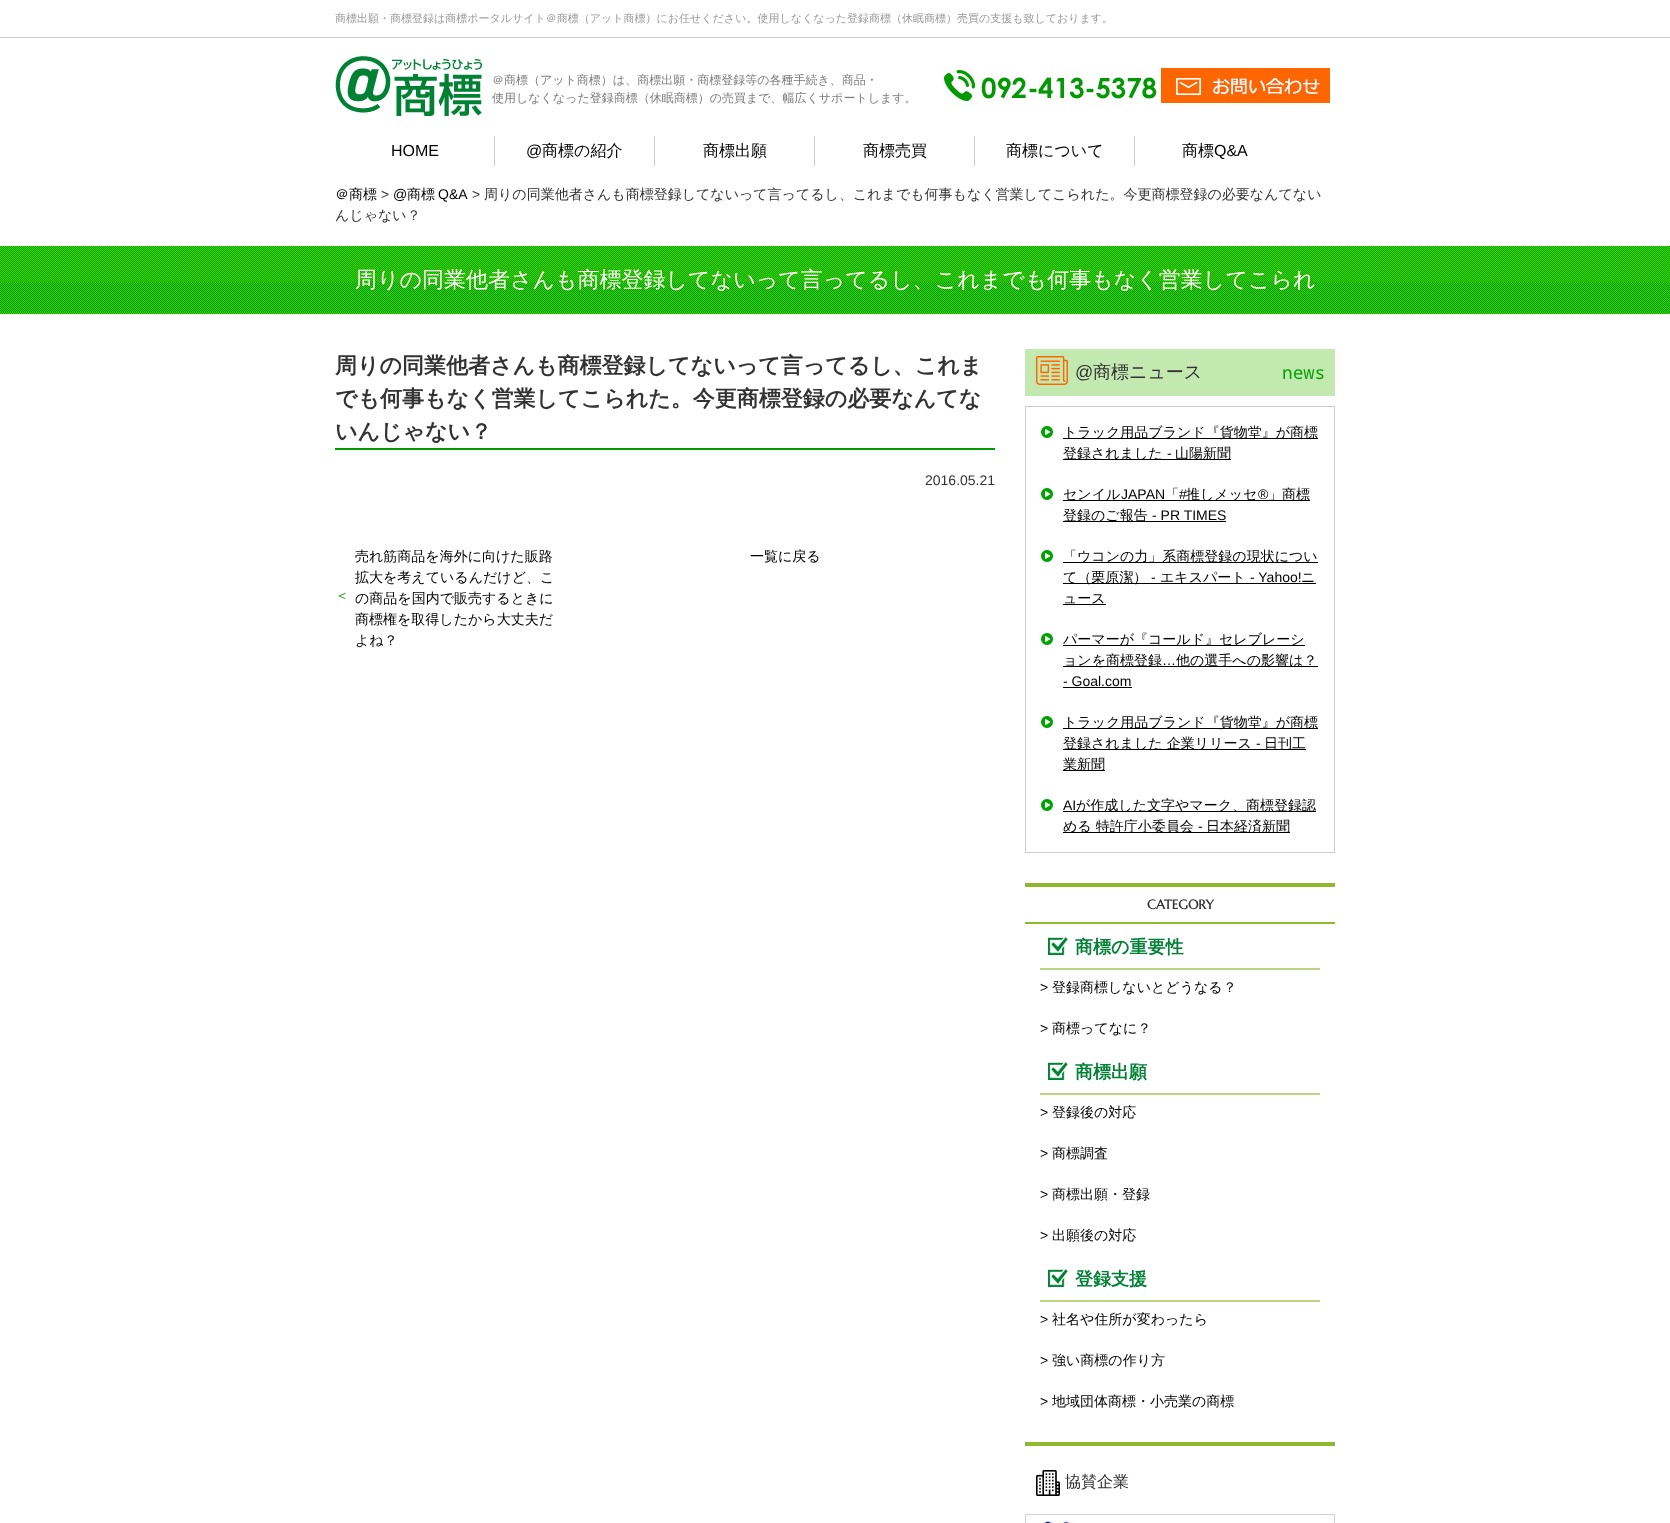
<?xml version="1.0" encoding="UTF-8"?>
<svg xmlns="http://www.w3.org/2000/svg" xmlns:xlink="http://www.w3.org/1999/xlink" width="1670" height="1523">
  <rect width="100%" height="100%" fill="#ffffff" />
  <rect y="37" width="1670" height="1" fill="#cccccc" />
  <image x="335" y="56" width="147" height="60" xlink:href="image1.png" />
  <image x="941" y="66" width="216" height="40" xlink:href="image2.png" />
  <image x="1161" y="68" width="169" height="35" xlink:href="image3.png" />
  <rect x="494" y="136" width="1" height="30" fill="#cccccc" />
  <rect x="654" y="136" width="1" height="30" fill="#cccccc" />
  <rect x="814" y="136" width="1" height="30" fill="#cccccc" />
  <rect x="974" y="136" width="1" height="30" fill="#cccccc" />
  <rect x="1134" y="136" width="1" height="30" fill="#cccccc" />
  <image x="0" y="246" width="1670" height="68" xlink:href="image4.png" />
  <rect x="335" y="448" width="660" height="2" fill="#009900" />
  <rect x="1025" y="349" width="310" height="47" fill="#c3e9b0" />
  <image x="1036" y="356" width="32" height="29" xlink:href="image5.png" />
  <rect x="1025.5" y="406.5" width="309" height="446" fill="none" stroke="#cccccc" />
  <image x="1041" y="426" width="12" height="12" xlink:href="image6.png" />
  <rect x="1063" y="438" width="255" height="1" fill="#000000" />
  <rect x="1063" y="459" width="168" height="1" fill="#000000" />
  <image x="1041" y="488" width="12" height="12" xlink:href="image6.png" />
  <rect x="1063" y="500" width="247" height="1" fill="#000000" />
  <rect x="1063" y="521" width="163" height="1" fill="#000000" />
  <image x="1041" y="550" width="12" height="12" xlink:href="image6.png" />
  <rect x="1063" y="562" width="255" height="1" fill="#000000" />
  <rect x="1063" y="583" width="253" height="1" fill="#000000" />
  <rect x="1063" y="604" width="43" height="1" fill="#000000" />
  <image x="1041" y="633" width="12" height="12" xlink:href="image6.png" />
  <rect x="1063" y="645" width="242" height="1" fill="#000000" />
  <rect x="1063" y="666" width="255" height="1" fill="#000000" />
  <rect x="1063" y="687" width="69" height="1" fill="#000000" />
  <image x="1041" y="716" width="12" height="12" xlink:href="image6.png" />
  <rect x="1063" y="728" width="255" height="1" fill="#000000" />
  <rect x="1063" y="749" width="243" height="1" fill="#000000" />
  <rect x="1063" y="770" width="42" height="1" fill="#000000" />
  <image x="1041" y="799" width="12" height="12" xlink:href="image6.png" />
  <rect x="1063" y="811" width="253" height="1" fill="#000000" />
  <rect x="1063" y="832" width="227" height="1" fill="#000000" />
  <rect x="1025" y="883" width="310" height="4" fill="#90b92e" />
  <rect x="1025" y="922" width="310" height="2" fill="#90b92e" />
  <rect x="1040" y="968" width="280" height="2" fill="#bcd582" />
  <image x="1048" y="937" width="20" height="18" xlink:href="image7.png" />
  <rect x="1040" y="1093" width="280" height="2" fill="#bcd582" />
  <image x="1048" y="1062" width="20" height="18" xlink:href="image7.png" />
  <rect x="1040" y="1300" width="280" height="2" fill="#bcd582" />
  <image x="1048" y="1269" width="20" height="18" xlink:href="image7.png" />
  <rect x="1025" y="1442" width="310" height="4" fill="#90b92e" />
  <image x="1036" y="1470" width="24" height="26" xlink:href="image8.png" />
  <image x="1025" y="1514" width="310" height="9" xlink:href="image9.png" />
  <text x="335" y="22" style="font-family: WenQuanYi Zen Hei; font-size: 11px; font-weight: 500; fill: #999999">商標出願・商標登録は商標ポータルサイト＠商標（アット商標）にお任せください。使用しなくなった登録商標（休眠商標）売買の支援も致しております。</text>
  <text x="492" y="84" style="font-family: WenQuanYi Zen Hei; font-size: 12px; font-weight: 500; fill: #7c7c7c">＠商標（アット商標）は、商標出願・商標登録等の各種手続き、商品・</text>
  <text x="492" y="102" style="font-family: WenQuanYi Zen Hei; font-size: 12px; font-weight: 500; fill: #7c7c7c">使用しなくなった登録商標（休眠商標）の売買まで、幅広くサポートします。</text>
  <text x="391" y="156" style="font-family: Liberation Sans; font-size: 16px; fill: #000000">HOME</text>
  <text x="526" y="156" style="font-family: Liberation Sans; font-size: 16px; fill: #000000">@</text>
  <text x="542" y="156" style="font-family: WenQuanYi Zen Hei; font-size: 16px; font-weight: 500; fill: #000000">商標の紹介</text>
  <text x="703" y="156" style="font-family: WenQuanYi Zen Hei; font-size: 16px; font-weight: 500; fill: #000000">商標出願</text>
  <text x="863" y="156" style="font-family: WenQuanYi Zen Hei; font-size: 16px; font-weight: 500; fill: #000000">商標売買</text>
  <text x="1006" y="156" style="font-family: WenQuanYi Zen Hei; font-size: 16px; font-weight: 500; fill: #000000">商標について</text>
  <text x="1182" y="156" style="font-family: WenQuanYi Zen Hei; font-size: 16px; font-weight: 500; fill: #000000">商標</text>
  <text x="1214" y="156" style="font-family: Liberation Sans; font-size: 16px; fill: #000000">Q&amp;A</text>
  <text x="335" y="199" style="font-family: WenQuanYi Zen Hei; font-size: 14px; font-weight: 500; fill: #000000">＠商標</text>
  <text x="381" y="199" style="font-family: Liberation Sans; font-size: 14px; fill: #333333">&gt;</text>
  <text x="393" y="199" style="font-family: Liberation Sans; font-size: 14px; fill: #000000">@</text>
  <text x="407" y="199" style="font-family: WenQuanYi Zen Hei; font-size: 14px; font-weight: 500; fill: #000000">商標</text>
  <text x="438" y="199" style="font-family: Liberation Sans; font-size: 14px; fill: #000000">Q&amp;A</text>
  <text x="472" y="199" style="font-family: Liberation Sans; font-size: 14px; fill: #333333">&gt;</text>
  <text x="484" y="199" style="font-family: WenQuanYi Zen Hei; font-size: 14px; font-weight: 500; fill: #333333">周りの同業他者さんも商標登録してないって言ってるし、これまでも何事もなく営業してこられた。今更商標登録の必要なんてない</text>
  <text x="335" y="220" style="font-family: WenQuanYi Zen Hei; font-size: 14px; font-weight: 500; fill: #333333">んじゃない？</text>
  <text x="355" y="287" style="font-family: WenQuanYi Zen Hei; font-size: 22px; font-weight: 500; fill: #ffffff">周りの同業他者さんも商標登録してないって言ってるし、これまでも何事もなく営業してこられ</text>
  <text x="335" y="373" style="font-family: WenQuanYi Zen Hei; font-size: 22px; font-weight: bold; fill: #333333">周りの同業他者さんも商標登録してないって言ってるし、これま</text>
  <text x="335" y="406" style="font-family: WenQuanYi Zen Hei; font-size: 22px; font-weight: bold; fill: #333333">でも何事もなく営業してこられた。今更商標登録の必要なんてな</text>
  <text x="335" y="439" style="font-family: WenQuanYi Zen Hei; font-size: 22px; font-weight: bold; fill: #333333">いんじゃない？</text>
  <text x="925" y="485" style="font-family: Liberation Sans; font-size: 14px; fill: #333333">2016.05.21</text>
  <text x="335" y="600" style="font-family: WenQuanYi Zen Hei; font-size: 14px; font-weight: 500; fill: #009900">＜</text>
  <text x="355" y="561" style="font-family: WenQuanYi Zen Hei; font-size: 14px; font-weight: 500; fill: #000000">売れ筋商品を海外に向けた販路</text>
  <text x="355" y="582" style="font-family: WenQuanYi Zen Hei; font-size: 14px; font-weight: 500; fill: #000000">拡大を考えているんだけど、こ</text>
  <text x="355" y="603" style="font-family: WenQuanYi Zen Hei; font-size: 14px; font-weight: 500; fill: #000000">の商品を国内で販売するときに</text>
  <text x="355" y="624" style="font-family: WenQuanYi Zen Hei; font-size: 14px; font-weight: 500; fill: #000000">商標権を取得したから大丈夫だ</text>
  <text x="355" y="645" style="font-family: WenQuanYi Zen Hei; font-size: 14px; font-weight: 500; fill: #000000">よね？</text>
  <text x="750" y="561" style="font-family: WenQuanYi Zen Hei; font-size: 14px; font-weight: 500; fill: #000000">一覧に戻る</text>
  <text x="1075" y="378" style="font-family: Liberation Sans; font-size: 18px; fill: #333333">@</text>
  <text x="1093" y="378" style="font-family: WenQuanYi Zen Hei; font-size: 18px; font-weight: 500; fill: #333333">商標ニュース</text>
  <text x="1282" y="379" style="font-family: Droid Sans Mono; font-size: 18px; fill: #00a400">news</text>
  <text x="1063" y="437" style="font-family: WenQuanYi Zen Hei; font-size: 14px; font-weight: 500; fill: #000000">トラック用品ブランド『貨物堂』が商標</text>
  <text x="1063" y="458" style="font-family: WenQuanYi Zen Hei; font-size: 14px; font-weight: 500; fill: #000000">登録されました</text>
  <text x="1167" y="458" style="font-family: Liberation Sans; font-size: 14px; fill: #000000">-</text>
  <text x="1175" y="458" style="font-family: WenQuanYi Zen Hei; font-size: 14px; font-weight: 500; fill: #000000">山陽新聞</text>
  <text x="1063" y="499" style="font-family: WenQuanYi Zen Hei; font-size: 14px; font-weight: 500; fill: #000000">センイル</text>
  <text x="1121" y="499" style="font-family: Liberation Sans; font-size: 14px; fill: #000000">JAPAN</text>
  <text x="1165" y="499" style="font-family: WenQuanYi Zen Hei; font-size: 14px; font-weight: 500; fill: #000000">「</text>
  <text x="1179" y="499" style="font-family: Liberation Sans; font-size: 14px; fill: #000000">#</text>
  <text x="1186" y="499" style="font-family: WenQuanYi Zen Hei; font-size: 14px; font-weight: 500; fill: #000000">推しメッセ</text>
  <text x="1258" y="499" style="font-family: Liberation Sans; font-size: 14px; fill: #000000">®︎</text>
  <text x="1268" y="499" style="font-family: WenQuanYi Zen Hei; font-size: 14px; font-weight: 500; fill: #000000">」商標</text>
  <text x="1063" y="520" style="font-family: WenQuanYi Zen Hei; font-size: 14px; font-weight: 500; fill: #000000">登録のご報告</text>
  <text x="1152" y="520" style="font-family: Liberation Sans; font-size: 14px; fill: #000000">- PR TIMES</text>
  <text x="1063" y="561" style="font-family: WenQuanYi Zen Hei; font-size: 14px; font-weight: 500; fill: #000000">「ウコンの力」系商標登録の現状につい</text>
  <text x="1063" y="582" style="font-family: WenQuanYi Zen Hei; font-size: 14px; font-weight: 500; fill: #000000">て（栗原潔）</text>
  <text x="1151" y="582" style="font-family: Liberation Sans; font-size: 14px; fill: #000000">-</text>
  <text x="1160" y="582" style="font-family: WenQuanYi Zen Hei; font-size: 14px; font-weight: 500; fill: #000000">エキスパート</text>
  <text x="1250" y="582" style="font-family: Liberation Sans; font-size: 14px; fill: #000000">- Yahoo!</text>
  <text x="1301" y="582" style="font-family: WenQuanYi Zen Hei; font-size: 14px; font-weight: 500; fill: #000000">ニ</text>
  <text x="1063" y="603" style="font-family: WenQuanYi Zen Hei; font-size: 14px; font-weight: 500; fill: #000000">ュース</text>
  <text x="1063" y="644" style="font-family: WenQuanYi Zen Hei; font-size: 14px; font-weight: 500; fill: #000000">パーマーが『コールド』セレブレーシ</text>
  <text x="1063" y="665" style="font-family: WenQuanYi Zen Hei; font-size: 14px; font-weight: 500; fill: #000000">ョンを商標登録</text>
  <text x="1162" y="665" style="font-family: Liberation Sans; font-size: 14px; fill: #000000">…</text>
  <text x="1176" y="665" style="font-family: WenQuanYi Zen Hei; font-size: 14px; font-weight: 500; fill: #000000">他の選手への影響は？</text>
  <text x="1063" y="686" style="font-family: Liberation Sans; font-size: 14px; fill: #000000">- Goal.com</text>
  <text x="1063" y="727" style="font-family: WenQuanYi Zen Hei; font-size: 14px; font-weight: 500; fill: #000000">トラック用品ブランド『貨物堂』が商標</text>
  <text x="1063" y="748" style="font-family: WenQuanYi Zen Hei; font-size: 14px; font-weight: 500; fill: #000000">登録されました 企業リリース</text>
  <text x="1256" y="748" style="font-family: Liberation Sans; font-size: 14px; fill: #000000">-</text>
  <text x="1264" y="748" style="font-family: WenQuanYi Zen Hei; font-size: 14px; font-weight: 500; fill: #000000">日刊工</text>
  <text x="1063" y="769" style="font-family: WenQuanYi Zen Hei; font-size: 14px; font-weight: 500; fill: #000000">業新聞</text>
  <text x="1063" y="810" style="font-family: Liberation Sans; font-size: 14px; fill: #000000">AI</text>
  <text x="1076" y="810" style="font-family: WenQuanYi Zen Hei; font-size: 14px; font-weight: 500; fill: #000000">が作成した文字やマーク、商標登録認</text>
  <text x="1063" y="831" style="font-family: WenQuanYi Zen Hei; font-size: 14px; font-weight: 500; fill: #000000">める 特許庁小委員会</text>
  <text x="1198" y="831" style="font-family: Liberation Sans; font-size: 14px; fill: #000000">-</text>
  <text x="1206" y="831" style="font-family: WenQuanYi Zen Hei; font-size: 14px; font-weight: 500; fill: #000000">日本経済新聞</text>
  <text x="1147" y="909" style="font-family: Marcellus; font-size: 13px; font-weight: bold; fill: #333333">CATEGORY</text>
  <text x="1075" y="953" style="font-family: WenQuanYi Zen Hei; font-size: 18px; font-weight: bold; fill: #008133">商標の重要性</text>
  <text x="1040" y="992" style="font-family: Liberation Sans; font-size: 14px; fill: #000000">&gt;</text>
  <text x="1052" y="992" style="font-family: WenQuanYi Zen Hei; font-size: 14px; font-weight: 500; fill: #000000">登録商標しないとどうなる？</text>
  <text x="1040" y="1033" style="font-family: Liberation Sans; font-size: 14px; fill: #000000">&gt;</text>
  <text x="1052" y="1033" style="font-family: WenQuanYi Zen Hei; font-size: 14px; font-weight: 500; fill: #000000">商標ってなに？</text>
  <text x="1075" y="1078" style="font-family: WenQuanYi Zen Hei; font-size: 18px; font-weight: bold; fill: #008133">商標出願</text>
  <text x="1040" y="1117" style="font-family: Liberation Sans; font-size: 14px; fill: #000000">&gt;</text>
  <text x="1052" y="1117" style="font-family: WenQuanYi Zen Hei; font-size: 14px; font-weight: 500; fill: #000000">登録後の対応</text>
  <text x="1040" y="1158" style="font-family: Liberation Sans; font-size: 14px; fill: #000000">&gt;</text>
  <text x="1052" y="1158" style="font-family: WenQuanYi Zen Hei; font-size: 14px; font-weight: 500; fill: #000000">商標調査</text>
  <text x="1040" y="1199" style="font-family: Liberation Sans; font-size: 14px; fill: #000000">&gt;</text>
  <text x="1052" y="1199" style="font-family: WenQuanYi Zen Hei; font-size: 14px; font-weight: 500; fill: #000000">商標出願・登録</text>
  <text x="1040" y="1240" style="font-family: Liberation Sans; font-size: 14px; fill: #000000">&gt;</text>
  <text x="1052" y="1240" style="font-family: WenQuanYi Zen Hei; font-size: 14px; font-weight: 500; fill: #000000">出願後の対応</text>
  <text x="1075" y="1285" style="font-family: WenQuanYi Zen Hei; font-size: 18px; font-weight: bold; fill: #008133">登録支援</text>
  <text x="1040" y="1324" style="font-family: Liberation Sans; font-size: 14px; fill: #000000">&gt;</text>
  <text x="1052" y="1324" style="font-family: WenQuanYi Zen Hei; font-size: 14px; font-weight: 500; fill: #000000">社名や住所が変わったら</text>
  <text x="1040" y="1365" style="font-family: Liberation Sans; font-size: 14px; fill: #000000">&gt;</text>
  <text x="1052" y="1365" style="font-family: WenQuanYi Zen Hei; font-size: 14px; font-weight: 500; fill: #000000">強い商標の作り方</text>
  <text x="1040" y="1406" style="font-family: Liberation Sans; font-size: 14px; fill: #000000">&gt;</text>
  <text x="1052" y="1406" style="font-family: WenQuanYi Zen Hei; font-size: 14px; font-weight: 500; fill: #000000">地域団体商標・小売業の商標</text>
  <text x="1065" y="1487" style="font-family: WenQuanYi Zen Hei; font-size: 16px; font-weight: 500; fill: #333333">協賛企業</text>
</svg>
